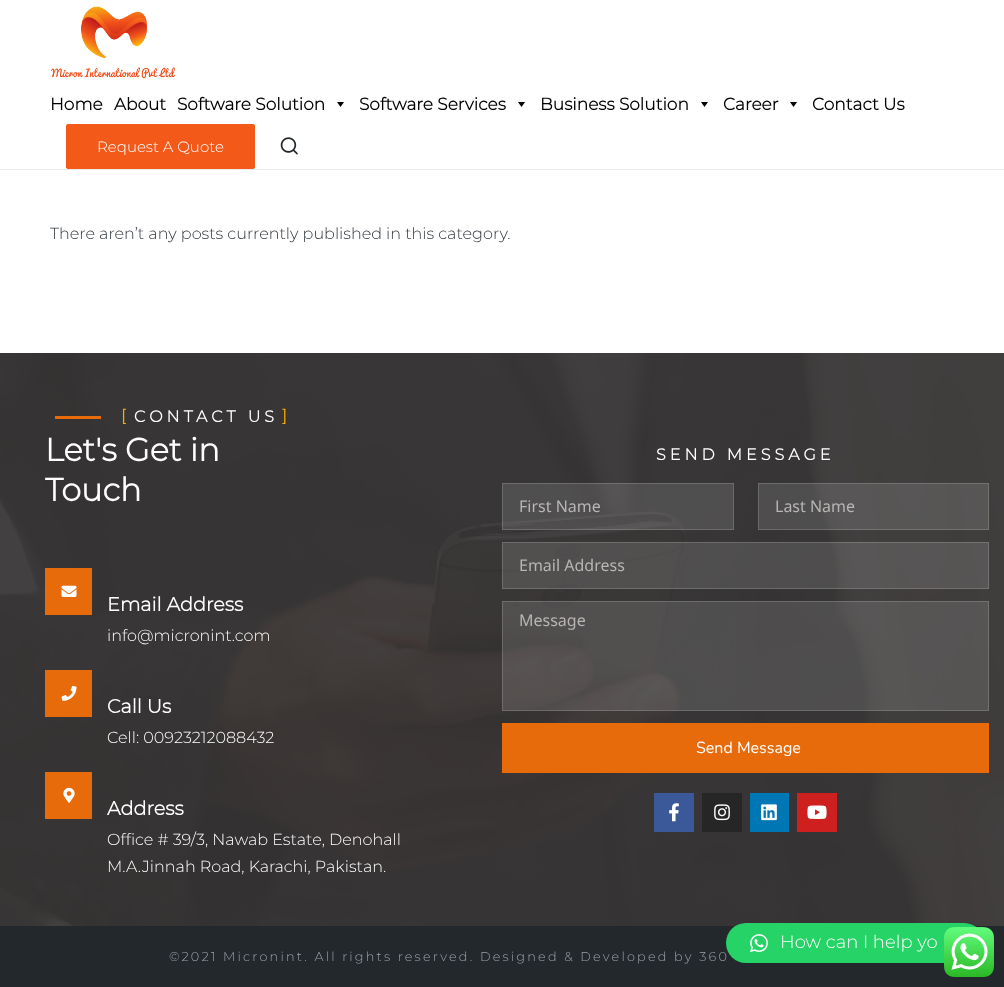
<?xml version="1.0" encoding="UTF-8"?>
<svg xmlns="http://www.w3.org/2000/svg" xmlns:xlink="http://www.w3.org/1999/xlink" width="1004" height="987">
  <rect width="100%" height="100%" fill="#ffffff" />
  <rect y="169" width="1004" height="1" fill="#e9e9e9" />
  <image x="51" y="6" width="124" height="73" xlink:href="image1.png" />
  <path d="M 344 102 l -3.5 5 l -3.5 -5 z" fill="#000000" />
  <path d="M 525 102 l -3.5 5 l -3.5 -5 z" fill="#000000" />
  <path d="M 708 102 l -3.5 5 l -3.5 -5 z" fill="#000000" />
  <path d="M 797 102 l -3.5 5 l -3.5 -5 z" fill="#000000" />
  <rect x="66.5" y="124.5" width="188" height="44" rx="1.5" fill="#f35919" stroke="#f35919" />
  <image x="280" y="137" width="18" height="18" xlink:href="image2.png" />
  <rect y="926" width="1004" height="61" fill="#23282d" />
  <image x="0" y="353" width="1004" height="573" xlink:href="image3.png" />
  <rect x="55" y="416" width="46" height="3" fill="#e86b0b" />
  <rect x="45" y="568" width="47" height="47" fill="#e86b0b" />
  <image x="61" y="585" width="16" height="12" xlink:href="image4.png" />
  <rect x="45" y="670" width="47" height="47" fill="#e86b0b" />
  <image x="61" y="685" width="16" height="16" xlink:href="image5.png" />
  <rect x="45" y="772" width="47" height="47" fill="#e86b0b" />
  <image x="63" y="787" width="12" height="16" xlink:href="image6.png" />
  <rect x="502" y="483" width="232" height="47" fill="#f7f7f7" fill-opacity="0.13" />
  <rect x="502.5" y="483.5" width="231" height="46" fill="none" stroke="#ffffff" stroke-opacity="0.17" />
  <rect x="758" y="483" width="231" height="47" fill="#f7f7f7" fill-opacity="0.13" />
  <rect x="758.5" y="483.5" width="230" height="46" fill="none" stroke="#ffffff" stroke-opacity="0.17" />
  <rect x="502" y="542" width="487" height="47" fill="#f7f7f7" fill-opacity="0.13" />
  <rect x="502.5" y="542.5" width="486" height="46" fill="none" stroke="#ffffff" stroke-opacity="0.17" />
  <rect x="502" y="601" width="487" height="110" fill="#f7f7f7" fill-opacity="0.13" />
  <rect x="502.5" y="601.5" width="486" height="109" fill="none" stroke="#ffffff" stroke-opacity="0.17" />
  <rect x="502" y="723" width="487" height="50" fill="#e86b0b" />
  <rect x="654" y="793" width="40" height="39" fill="#3b5998" />
  <image x="669" y="803" width="10" height="19" xlink:href="image7.png" />
  <rect x="702" y="793" width="40" height="39" fill="#262626" />
  <image x="714" y="804" width="16" height="17" xlink:href="image8.png" />
  <rect x="750" y="793" width="39" height="39" fill="#0077b5" />
  <image x="761" y="804" width="16" height="17" xlink:href="image9.png" />
  <rect x="797" y="793" width="40" height="39" fill="#cd201f" />
  <image x="807" y="805" width="20" height="14" xlink:href="image10.png" />
  <text x="50" y="110" style="font-family: Montserrat; font-size: 17px; font-weight: bold; fill: #000000">Home</text>
  <text x="114" y="110" style="font-family: Montserrat; font-size: 17px; font-weight: bold; fill: #000000">About</text>
  <text x="177" y="110" style="font-family: Montserrat; font-size: 17px; font-weight: bold; fill: #000000">Software Solution</text>
  <text x="359" y="110" style="font-family: Montserrat; font-size: 17px; font-weight: bold; fill: #000000">Software Services</text>
  <text x="540" y="110" style="font-family: Montserrat; font-size: 17px; font-weight: bold; fill: #000000">Business Solution</text>
  <text x="723" y="110" style="font-family: Montserrat; font-size: 17px; font-weight: bold; fill: #000000">Career</text>
  <text x="812" y="110" style="font-family: Montserrat; font-size: 17px; font-weight: bold; fill: #000000">Contact Us</text>
  <text x="97" y="152" style="font-family: Montserrat; font-size: 15px; font-weight: 300; fill: #ffffff">Request A Quote</text>
  <text x="50" y="239" style="font-family: Montserrat; font-size: 16px; font-weight: 300; fill: #30373e">There aren’t any posts currently published in this category.</text>
  <text x="121" y="421" style="font-family: Montserrat; font-size: 16px; font-weight: bold; letter-spacing: 4px; fill: #ffab00">[</text>
  <text x="134" y="422" style="font-family: Montserrat; font-size: 16px; font-weight: bold; letter-spacing: 4px; fill: #ffffff">CONTACT US</text>
  <text x="282" y="421" style="font-family: Montserrat; font-size: 16px; font-weight: bold; letter-spacing: 4px; fill: #ffab00">]</text>
  <text x="45" y="461" style="font-family: Montserrat; font-size: 32px; font-weight: bold; fill: #ffffff">Let's Get in</text>
  <text x="45" y="501" style="font-family: Montserrat; font-size: 32px; font-weight: bold; fill: #ffffff">Touch</text>
  <text x="107" y="611" style="font-family: Montserrat; font-size: 19.25px; font-weight: bold; fill: #ffffff">Email Address</text>
  <text x="107" y="641" style="font-family: Montserrat; font-size: 16px; font-weight: 300; fill: #ffffff">info@micronint.com</text>
  <text x="107" y="713" style="font-family: Montserrat; font-size: 19.25px; font-weight: bold; fill: #ffffff">Call Us</text>
  <text x="107" y="743" style="font-family: Montserrat; font-size: 16px; font-weight: 300; fill: #ffffff">Cell: 00923212088432</text>
  <text x="107" y="815" style="font-family: Montserrat; font-size: 19.25px; font-weight: bold; fill: #ffffff">Address</text>
  <text x="107" y="845" style="font-family: Montserrat; font-size: 16px; font-weight: 300; fill: #ffffff">Office # 39/3, Nawab Estate, Denohall</text>
  <text x="107" y="872" style="font-family: Montserrat; font-size: 16px; font-weight: 300; fill: #ffffff">M.A.Jinnah Road, Karachi, Pakistan.</text>
  <text x="656" y="460" style="font-family: Montserrat; font-size: 16px; font-weight: bold; letter-spacing: 4px; fill: #ffffff">SEND MESSAGE</text>
  <text x="519" y="512" style="font-family: Noto Sans; font-size: 16px; fill: #b9b5b5">First Name</text>
  <text x="775" y="512" style="font-family: Noto Sans; font-size: 16px; fill: #b9b5b5">Last Name</text>
  <text x="519" y="571" style="font-family: Noto Sans; font-size: 16px; fill: #b9b5b5">Email Address</text>
  <text x="519" y="626" style="font-family: Noto Sans; font-size: 16px; fill: #b9b5b5">Message</text>
  <text x="696" y="753" style="font-family: Nunito; font-size: 16px; fill: #ffffff">Send Message</text>
  <text x="169" y="961" style="font-family: Montserrat; font-size: 12.8px; font-weight: 300; letter-spacing: 2.2px; fill: #9ba1a7">©2021 Micronint. All rights reserved. Designed &amp; Developed by 360</text>
  <rect x="726" y="923" width="258" height="40" rx="20" fill="#25d366" />
  <image x="944" y="927" width="50" height="50" xlink:href="image11.png" />
  <image x="750" y="934" width="18" height="19" xlink:href="image12.png" />
  <text x="780" y="948" style="font-family: Montserrat; font-size: 18px; font-weight: 300; fill: #ffffff">How can I help yo</text>
</svg>
